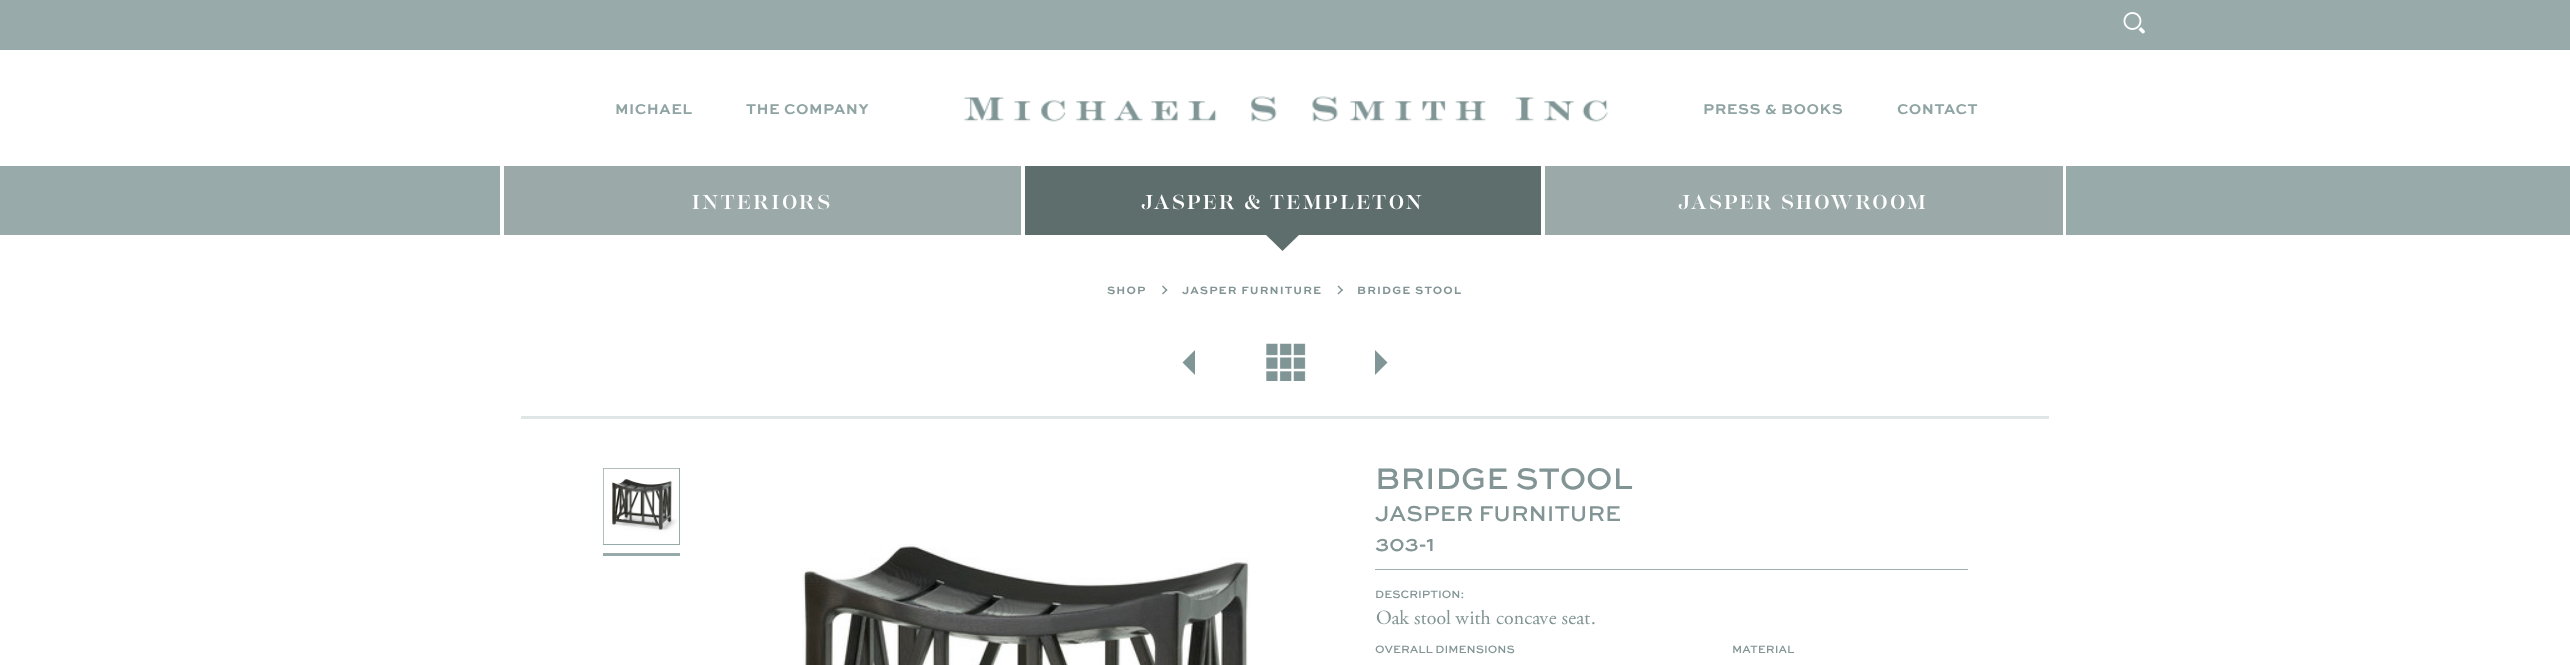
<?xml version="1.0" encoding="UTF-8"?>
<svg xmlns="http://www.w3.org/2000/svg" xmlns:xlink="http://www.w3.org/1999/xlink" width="2570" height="665">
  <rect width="100%" height="100%" fill="#ffffff" />
  <rect width="2570" height="50" fill="#99aaaa" />
  <image x="2123" y="12" width="22" height="22" xlink:href="image1.png" />
  <image x="963" y="96" width="645" height="26" xlink:href="image2.png" />
  <rect y="166" width="500" height="69" fill="#99aaaa" />
  <rect x="504" y="166" width="517" height="69" fill="#9ba9a9" />
  <rect x="1025" y="166" width="516" height="69" fill="#5d6e6d" />
  <path d="M 1265 234 h 35 l -17.5 17 z" fill="#5d6e6d" />
  <rect x="1545" y="166" width="518" height="69" fill="#9ba9a9" />
  <rect x="2066" y="166" width="504" height="69" fill="#99aaaa" />
  <path d="M 1162 286.5 l 1 -1 l 4.5 4.5 l -1 1 z" fill="#829494" />
  <path d="M 1162 293.5 l 4.5 -4.5 l 1 1 l -4.5 4.5 z" fill="#829494" />
  <path d="M 1337.5 286.5 l 1 -1 l 4.5 4.5 l -1 1 z" fill="#829494" />
  <path d="M 1337.5 293.5 l 4.5 -4.5 l 1 1 l -4.5 4.5 z" fill="#829494" />
  <path d="M 1195 350 v 25 l -12.5 -12.5 z" fill="#809595" />
  <rect x="1266" y="343" width="40" height="38" fill="#809595" />
  <image x="1265" y="343" width="41" height="38" xlink:href="image3.png" />
  <path d="M 1375 375 v -25 l 12.5 12.5 z" fill="#809595" />
  <rect x="521" y="416" width="1528" height="3" fill="#e0e5e5" />
  <rect x="603.5" y="468.5" width="76" height="76" fill="none" stroke="#98a9a9" />
  <image x="603" y="468" width="76" height="76" xlink:href="image4.png" />
  <rect x="603" y="553" width="77" height="3" fill="#98a9a9" />
  <image x="801" y="544" width="449" height="121" xlink:href="image5.png" />
  <rect x="1375" y="569" width="593" height="1" fill="#a0b0b0" />
  <text x="615" y="114" style="font-family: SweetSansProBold; font-size: 15px; font-weight: bold; letter-spacing: 0.5px; fill: #90a4a4">MICHAEL</text>
  <text x="746" y="114" style="font-family: SweetSansProBold; font-size: 15px; font-weight: bold; letter-spacing: 0.5px; fill: #90a4a4">THE COMPANY</text>
  <text x="1703" y="114" style="font-family: SweetSansProBold; font-size: 15px; font-weight: bold; letter-spacing: 0.5px; fill: #90a4a4">PRESS &amp; BOOKS</text>
  <text x="1897" y="114" style="font-family: SweetSansProBold; font-size: 15px; font-weight: bold; letter-spacing: 0.5px; fill: #90a4a4">CONTACT</text>
  <text x="692" y="209" style="font-family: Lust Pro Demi; font-size: 20px; font-weight: 500; letter-spacing: 2.75px; fill: #ffffff">INTERIORS</text>
  <text x="1141" y="209" style="font-family: Lust Pro Demi; font-size: 20px; font-weight: 500; letter-spacing: 2.75px; fill: #ffffff">JASPER &amp; TEMPLETON</text>
  <text x="1678" y="209" style="font-family: Lust Pro Demi; font-size: 20px; font-weight: 500; letter-spacing: 2.75px; fill: #ffffff">JASPER SHOWROOM</text>
  <text x="1107" y="294" style="font-family: SweetSansProBold; font-size: 11.25px; font-weight: bold; letter-spacing: 1.1px; fill: #829494">SHOP</text>
  <text x="1182" y="294" style="font-family: SweetSansProBold; font-size: 11.25px; font-weight: bold; letter-spacing: 1.1px; fill: #829494">JASPER FURNITURE</text>
  <text x="1357" y="294" style="font-family: SweetSansProBold; font-size: 11.25px; font-weight: bold; letter-spacing: 1.1px; fill: #829494">BRIDGE STOOL</text>
  <text x="1375" y="489" style="font-family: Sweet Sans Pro; font-size: 31.25px; font-weight: 500; fill: #829494">BRIDGE STOOL</text>
  <text x="1375" y="521" style="font-family: Sweet Sans Pro; font-size: 22.5px; font-weight: 500; fill: #829494">JASPER FURNITURE</text>
  <text x="1375" y="551" style="font-family: Sweet Sans Pro; font-size: 21px; font-weight: 500; fill: #829494">303-1</text>
  <text x="1375" y="598" style="font-family: Sweet Sans Pro; font-size: 11.25px; font-weight: 500; fill: #829494">DESCRIPTION:</text>
  <text x="1375" y="624" style="font-family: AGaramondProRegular; font-size: 20px; fill: #829494">Oak stool with concave seat.</text>
  <text x="1375" y="653" style="font-family: Sweet Sans Pro; font-size: 11.25px; font-weight: 500; fill: #829494">OVERALL DIMENSIONS</text>
  <text x="1732" y="653" style="font-family: Sweet Sans Pro; font-size: 11.25px; font-weight: 500; fill: #829494">MATERIAL</text>
</svg>
